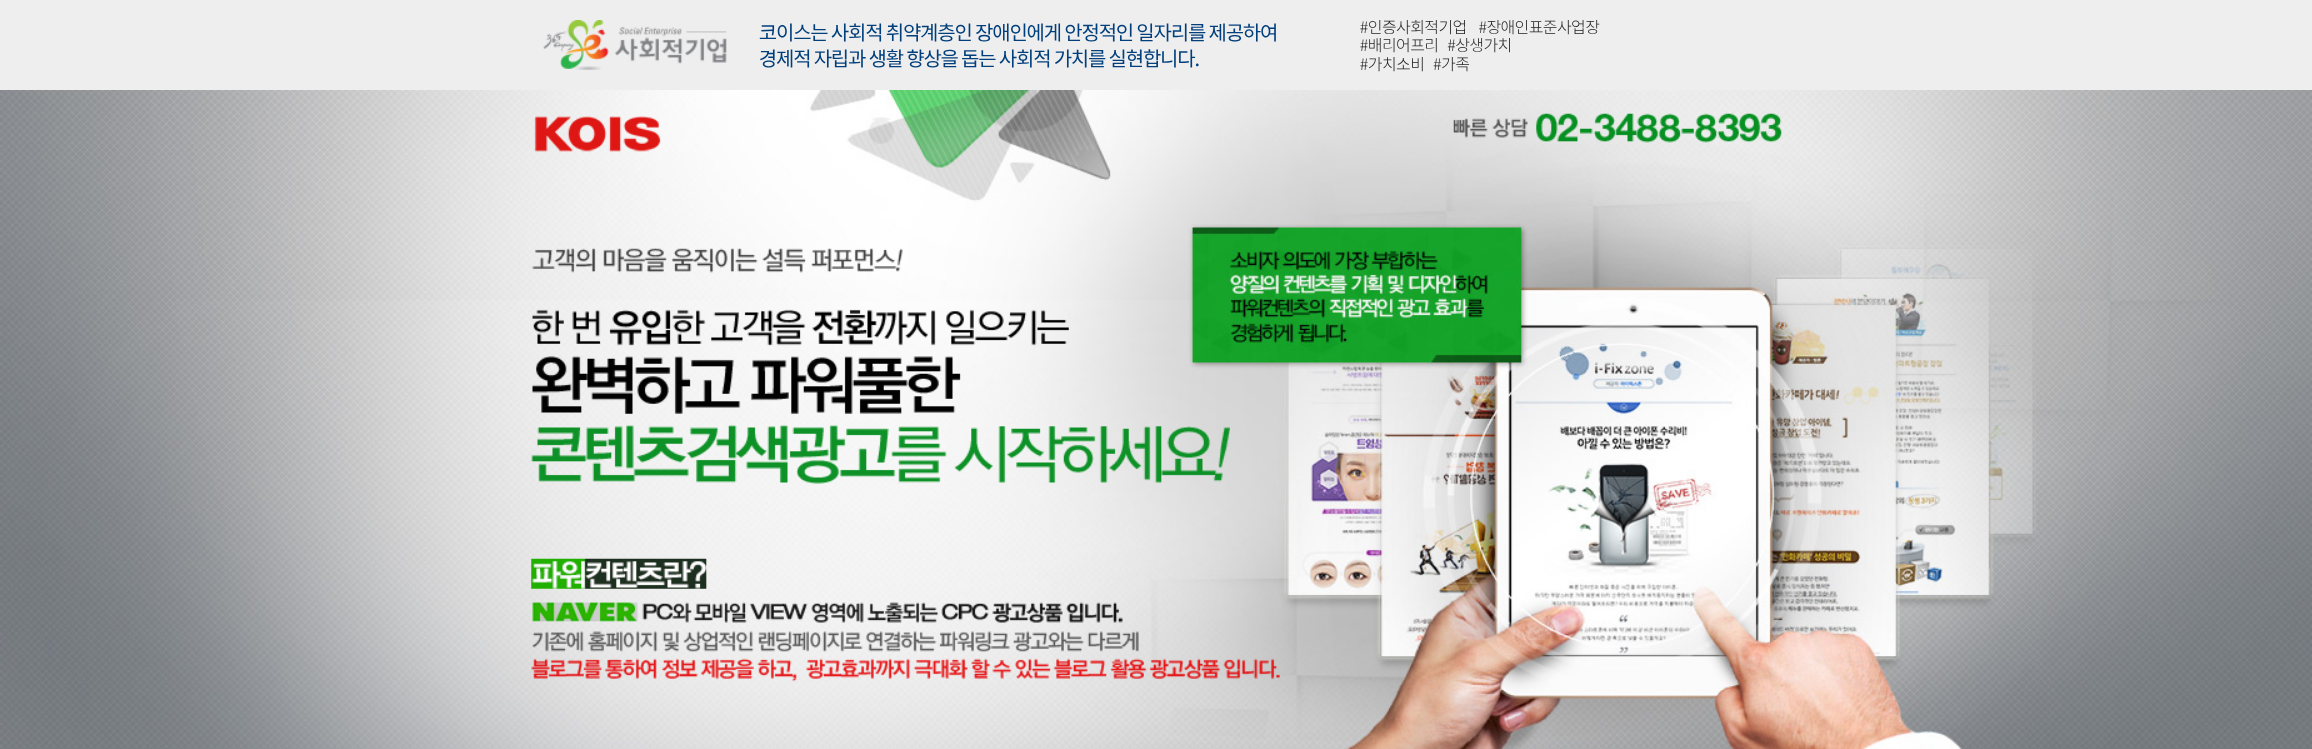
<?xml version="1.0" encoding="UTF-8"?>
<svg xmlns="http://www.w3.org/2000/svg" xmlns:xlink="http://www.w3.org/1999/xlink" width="2312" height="749">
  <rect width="100%" height="100%" fill="#ffffff" />
  <image x="0" y="0" width="2312" height="749" xlink:href="image1.png" />
</svg>
